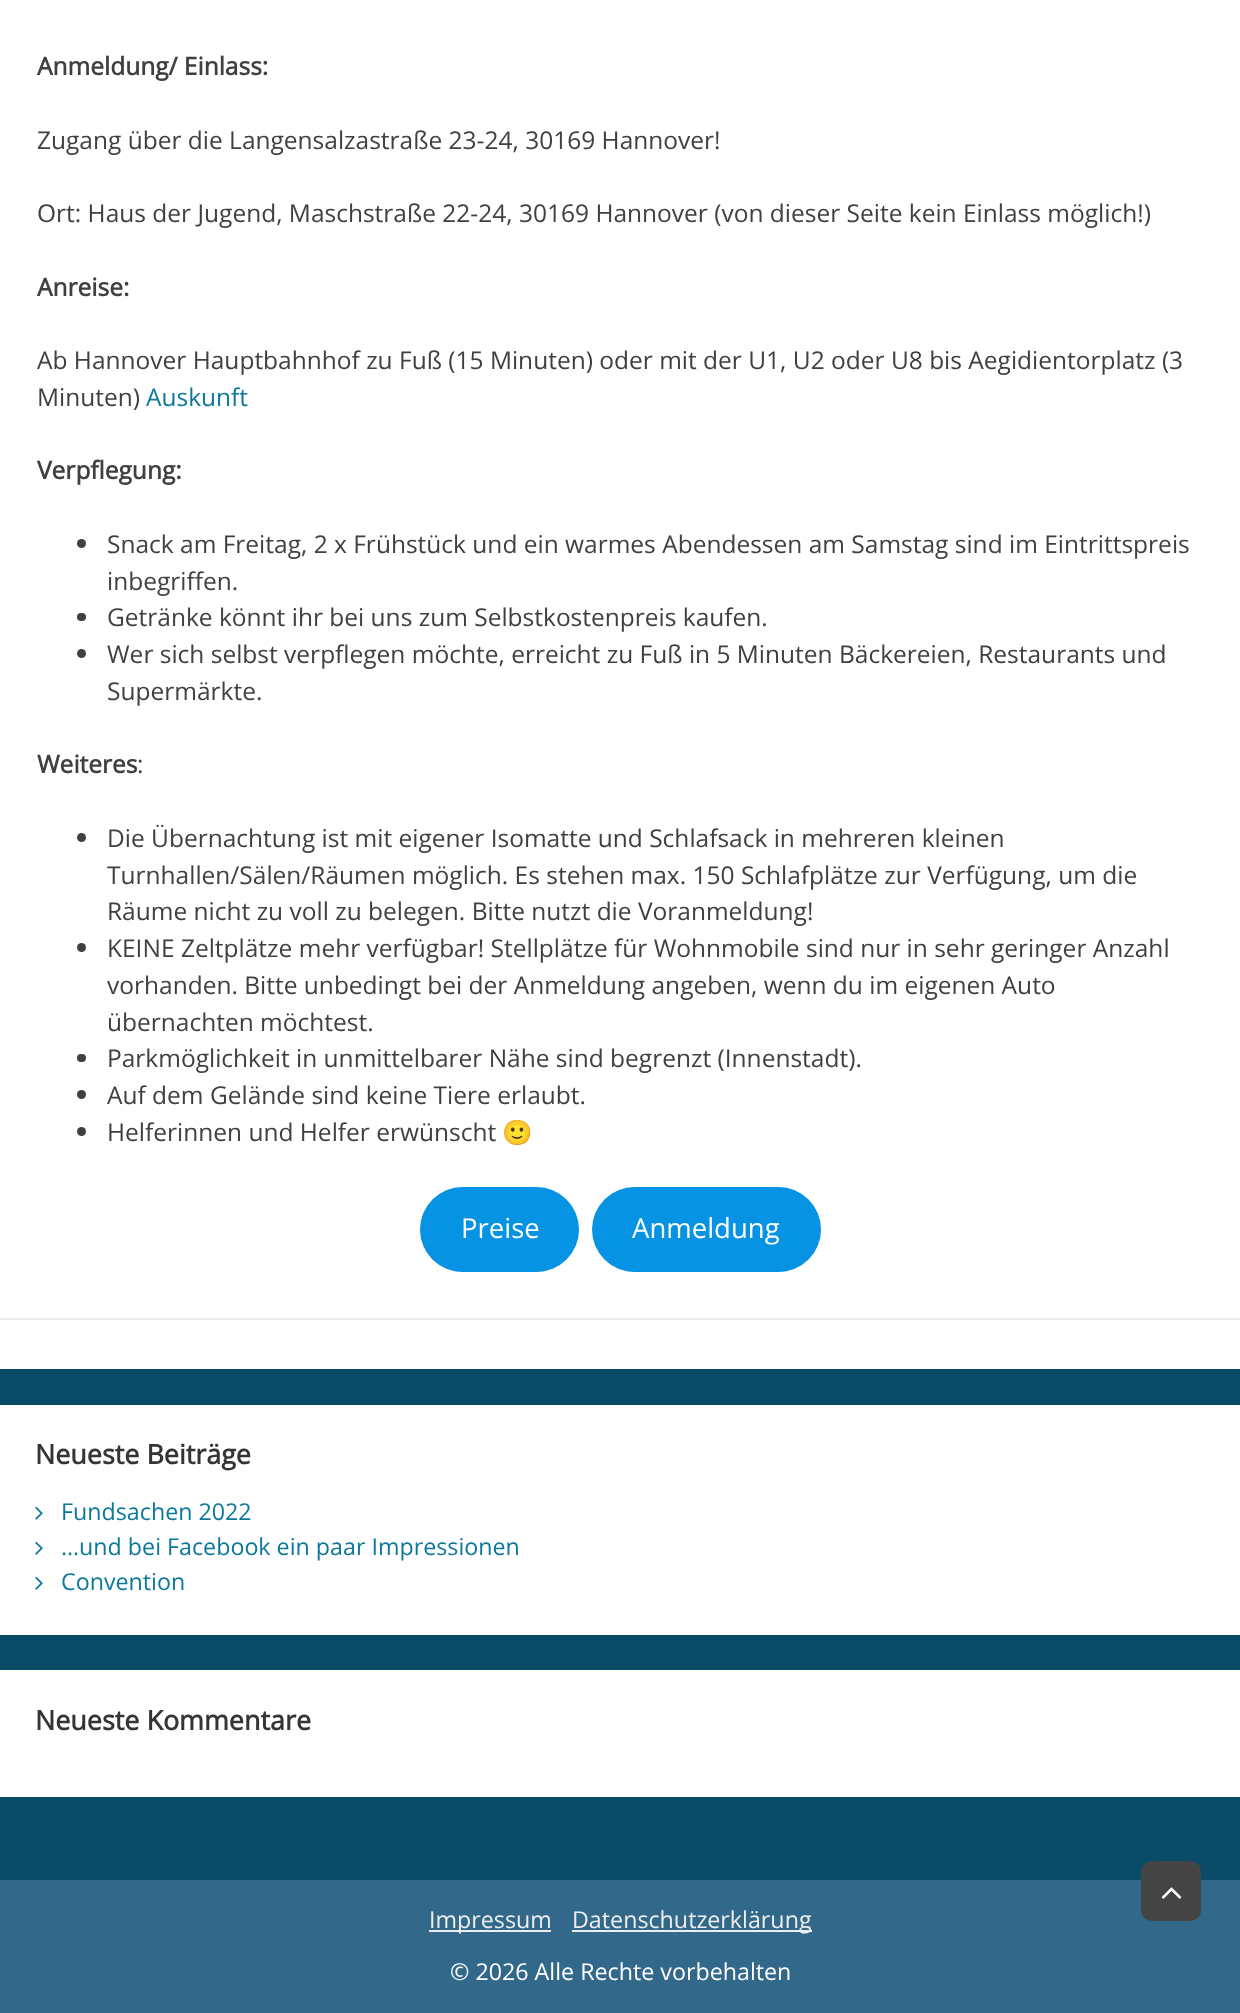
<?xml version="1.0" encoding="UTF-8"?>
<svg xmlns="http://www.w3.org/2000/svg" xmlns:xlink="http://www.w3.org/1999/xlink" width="1240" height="2013">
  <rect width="100%" height="100%" fill="#0a4c68" />
  <rect width="1240" height="1369" fill="#ffffff" />
  <circle cx="81.5" cy="543.5" r="4.5" fill="#404040" />
  <rect x="77" y="613" width="9" height="8" rx="4" fill="#404040" />
  <circle cx="81.5" cy="653.5" r="4.5" fill="#404040" />
  <circle cx="81.5" cy="837.5" r="4.5" fill="#404040" />
  <circle cx="81.5" cy="947.5" r="4.5" fill="#404040" />
  <rect x="77" y="1054" width="9" height="8" rx="4" fill="#404040" />
  <circle cx="81.5" cy="1094.5" r="4.5" fill="#404040" />
  <circle cx="81.5" cy="1131.5" r="4.5" fill="#404040" />
  <rect x="420" y="1187" width="159" height="85" rx="42.5" fill="#0693e3" />
  <rect x="592" y="1187" width="229" height="85" rx="42.5" fill="#0693e3" />
  <rect y="1318" width="1240" height="2" fill="#ededed" />
  <rect y="1405" width="1240" height="230" fill="#ffffff" />
  <image x="35" y="1506" width="8" height="14" xlink:href="image1.png" />
  <image x="35" y="1541" width="8" height="14" xlink:href="image1.png" />
  <image x="35" y="1576" width="8" height="14" xlink:href="image1.png" />
  <rect y="1670" width="1240" height="127" fill="#ffffff" />
  <rect y="1880" width="1240" height="133" fill="#32698b" />
  <rect x="429" y="1930" width="122" height="2" fill="#eeeeee" />
  <rect x="572" y="1930" width="240" height="2" fill="#eeeeee" />
  <path d="M 1201 1872 v 40 c -2 9 -10 9 -17 9 h -26 c -7 0 -15 0 -17 -9 v -40 c 0 -10 9 -11 17 -11 h 26 c 8 0 17 1 17 11 z" fill="#444444" />
  <image x="1161" y="1887" width="21" height="12" xlink:href="image2.png" />
  <text x="37" y="75" style="font-family: Open Sans; font-size: 24.5px; font-weight: bold; fill: #404040">Anmeldung/ Einlass:</text>
  <text x="37" y="149" style="font-family: Open Sans; font-size: 24.5px; fill: #404040">Zugang über die Langensalzastraße 23-24, 30169 Hannover!</text>
  <text x="37" y="222" style="font-family: Open Sans; font-size: 24.5px; fill: #404040">Ort: Haus der Jugend, Maschstraße 22-24, 30169 Hannover (von dieser Seite kein Einlass möglich!)</text>
  <text x="37" y="296" style="font-family: Open Sans; font-size: 24.5px; font-weight: bold; fill: #404040">Anreise:</text>
  <text x="37" y="369" style="font-family: Open Sans; font-size: 24.5px; fill: #404040">Ab Hannover Hauptbahnhof zu Fuß (15 Minuten) oder mit der U1, U2 oder U8 bis Aegidientorplatz (3</text>
  <text x="37" y="406" style="font-family: Open Sans; font-size: 24.5px; fill: #404040">Minuten)</text>
  <text x="146" y="406" style="font-family: Open Sans; font-size: 24.5px; fill: #0b789c">Auskunft</text>
  <text x="37" y="479" style="font-family: Open Sans; font-size: 24.5px; font-weight: bold; fill: #404040">Verpflegung:</text>
  <text x="107" y="553" style="font-family: Open Sans; font-size: 24.5px; fill: #404040">Snack am Freitag, 2 x Frühstück und ein warmes Abendessen am Samstag sind im Eintrittspreis</text>
  <text x="107" y="590" style="font-family: Open Sans; font-size: 24.5px; fill: #404040">inbegriffen.</text>
  <text x="107" y="626" style="font-family: Open Sans; font-size: 24.5px; fill: #404040">Getränke könnt ihr bei uns zum Selbstkostenpreis kaufen.</text>
  <text x="107" y="663" style="font-family: Open Sans; font-size: 24.5px; fill: #404040">Wer sich selbst verpflegen möchte, erreicht zu Fuß in 5 Minuten Bäckereien, Restaurants und</text>
  <text x="107" y="700" style="font-family: Open Sans; font-size: 24.5px; fill: #404040">Supermärkte.</text>
  <text x="37" y="773" style="font-family: Open Sans; font-size: 24.5px; font-weight: bold; fill: #404040">Weiteres</text>
  <text x="137" y="773" style="font-family: Open Sans; font-size: 24.5px; fill: #404040">:</text>
  <text x="107" y="847" style="font-family: Open Sans; font-size: 24.5px; fill: #404040">Die Übernachtung ist mit eigener Isomatte und Schlafsack in mehreren kleinen</text>
  <text x="107" y="884" style="font-family: Open Sans; font-size: 24.5px; fill: #404040">Turnhallen/Sälen/Räumen möglich. Es stehen max. 150 Schlafplätze zur Verfügung, um die</text>
  <text x="107" y="920" style="font-family: Open Sans; font-size: 24.5px; fill: #404040">Räume nicht zu voll zu belegen. Bitte nutzt die Voranmeldung!</text>
  <text x="107" y="957" style="font-family: Open Sans; font-size: 24.5px; fill: #404040">KEINE Zeltplätze mehr verfügbar! Stellplätze für Wohnmobile sind nur in sehr geringer Anzahl</text>
  <text x="107" y="994" style="font-family: Open Sans; font-size: 24.5px; fill: #404040">vorhanden. Bitte unbedingt bei der Anmeldung angeben, wenn du im eigenen Auto</text>
  <text x="107" y="1031" style="font-family: Open Sans; font-size: 24.5px; fill: #404040">übernachten möchtest.</text>
  <text x="107" y="1067" style="font-family: Open Sans; font-size: 24.5px; fill: #404040">Parkmöglichkeit in unmittelbarer Nähe sind begrenzt (Innenstadt).</text>
  <text x="107" y="1104" style="font-family: Open Sans; font-size: 24.5px; fill: #404040">Auf dem Gelände sind keine Tiere erlaubt.</text>
  <text x="107" y="1141" style="font-family: Open Sans; font-size: 24.5px; fill: #404040">Helferinnen und Helfer erwünscht</text>
  <text x="502" y="1141" style="font-family: Noto Color Emoji; font-size: 24.5px; fill: #404040">🙂</text>
  <text x="461" y="1238" style="font-family: Open Sans; font-size: 27.5px; fill: #ffffff">Preise</text>
  <text x="632" y="1238" style="font-family: Open Sans; font-size: 27.5px; fill: #ffffff">Anmeldung</text>
  <text x="35" y="1464" style="font-family: Open Sans; font-size: 26.9px; font-weight: bold; fill: #353535">Neueste Beiträge</text>
  <text x="61" y="1520" style="font-family: Open Sans; font-size: 23.25px; fill: #0b789c">Fundsachen 2022</text>
  <text x="61" y="1555" style="font-family: Open Sans; font-size: 23.25px; fill: #0b789c">…und bei Facebook ein paar Impressionen</text>
  <text x="61" y="1590" style="font-family: Open Sans; font-size: 23.25px; fill: #0b789c">Convention</text>
  <text x="35" y="1730" style="font-family: Open Sans; font-size: 26.9px; font-weight: bold; fill: #353535">Neueste Kommentare</text>
  <text x="429" y="1928" style="font-family: Open Sans; font-size: 23.25px; fill: #eeeeee">Impressum</text>
  <text x="572" y="1928" style="font-family: Open Sans; font-size: 23.25px; fill: #eeeeee">Datenschutzerklärung</text>
  <text x="450" y="1980" style="font-family: Open Sans; font-size: 23.25px; fill: #ffffff">© 2026 Alle Rechte vorbehalten</text>
</svg>
